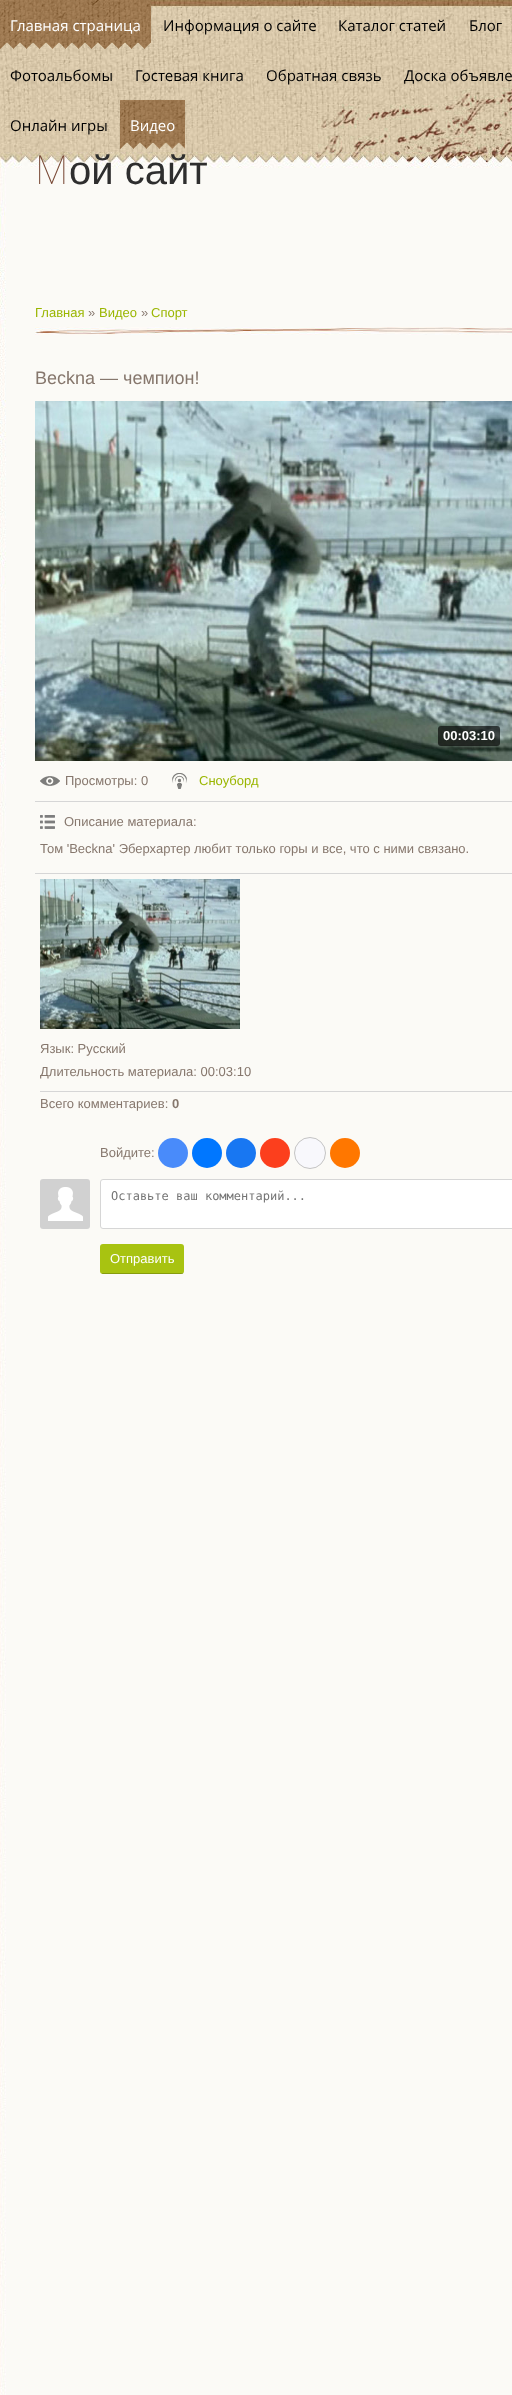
<?xml version="1.0" encoding="UTF-8"?>
<svg xmlns="http://www.w3.org/2000/svg" xmlns:xlink="http://www.w3.org/1999/xlink" width="512" height="2395">
  <rect width="100%" height="100%" fill="#ffffff" />
  <image x="0" y="816" width="512" height="1579" xlink:href="image1.png" />
  <image x="0" y="6" width="512" height="810" xlink:href="image2.png" />
  <image x="151" y="0" width="361" height="6" xlink:href="image3.png" />
  <image x="0" y="0" width="151" height="49" xlink:href="image4.png" />
  <image x="120" y="100" width="65" height="49" xlink:href="image5.png" />
  <image x="35" y="327" width="477" height="8" xlink:href="image6.png" />
  <image x="35" y="401" width="477" height="360" xlink:href="image7.png" />
  <rect x="438" y="726" width="62" height="20" rx="3" fill="#000000" fill-opacity="0.63" />
  <image x="40" y="776" width="20" height="10" xlink:href="image8.png" />
  <image x="172" y="773" width="15" height="16" xlink:href="image9.png" />
  <rect x="35" y="801" width="477" height="1" fill="#d6d6d6" />
  <image x="40" y="815" width="15" height="14" xlink:href="image10.png" />
  <rect x="35" y="873" width="477" height="1" fill="#d6d6d6" />
  <image x="40" y="879" width="200" height="150" xlink:href="image11.png" />
  <rect x="40" y="1091" width="472" height="1" fill="#d6d6d6" />
  <circle cx="173" cy="1153" r="15" fill="#498bfa" />
  <circle cx="207" cy="1153" r="15" fill="#0077ff" />
  <circle cx="241" cy="1153" r="15" fill="#1877f2" />
  <circle cx="275" cy="1153" r="15" fill="#fc3f1d" />
  <circle cx="310" cy="1153" r="15.5" fill="#f8f8fc" stroke="#c4c4c4" />
  <circle cx="345" cy="1153" r="15" fill="#ff7700" />
  <image x="40" y="1179" width="50" height="50" xlink:href="image12.png" />
  <rect x="100.5" y="1179.5" width="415" height="49" rx="2.5" fill="#ffffff" stroke="#d6d6d6" />
  <rect x="100" y="1244" width="84" height="30" rx="3" fill="#a8c311" />
  <rect x="102" y="1273" width="81" height="1" fill="#000000" fill-opacity="0.2" />
  <text x="10" y="31" style="font-family: Open Sans; font-size: 15px; fill: #ffffff">Главная страница</text>
  <text x="163" y="31" style="font-family: Open Sans; font-size: 15px; fill: #000000">Информация о сайте</text>
  <text x="338" y="31" style="font-family: Open Sans; font-size: 15px; fill: #000000">Каталог статей</text>
  <text x="469" y="31" style="font-family: Open Sans; font-size: 15px; fill: #000000">Блог</text>
  <text x="10" y="81" style="font-family: Open Sans; font-size: 15px; fill: #000000">Фотоальбомы</text>
  <text x="135" y="81" style="font-family: Open Sans; font-size: 15px; fill: #000000">Гостевая книга</text>
  <text x="266" y="81" style="font-family: Open Sans; font-size: 15px; fill: #000000">Обратная связь</text>
  <text x="404" y="81" style="font-family: Open Sans; font-size: 15px; fill: #000000">Доска объявле</text>
  <text x="10" y="131" style="font-family: Open Sans; font-size: 15px; fill: #000000">Онлайн игры</text>
  <text x="130" y="131" style="font-family: Open Sans; font-size: 15px; fill: #ffffff">Видео</text>
  <text x="35" y="184" style="font-family: Noto Sans; font-size: 40px; font-weight: 100; fill: #7a4a37">М</text>
  <text x="69" y="184" style="font-family: Liberation Sans; font-size: 40px; fill: #2e2e2e">ой сайт</text>
  <text x="35" y="317" style="font-family: Liberation Sans; font-size: 13px; fill: #9ab600">Главная</text>
  <text x="88" y="317" style="font-family: Liberation Sans; font-size: 13px; fill: #86776d">»</text>
  <text x="99" y="317" style="font-family: Liberation Sans; font-size: 13px; fill: #9ab600">Видео</text>
  <text x="141" y="317" style="font-family: Liberation Sans; font-size: 13px; fill: #86776d">»</text>
  <text x="151" y="317" style="font-family: Liberation Sans; font-size: 13px; fill: #9ab600">Спорт</text>
  <text x="35" y="384" style="font-family: Liberation Sans; font-size: 18px; fill: #86776d">Beckna — чемпион!</text>
  <text x="443" y="740" style="font-family: Liberation Sans; font-size: 13px; font-weight: bold; fill: #ffffff">00:03:10</text>
  <text x="65" y="785" style="font-family: Liberation Sans; font-size: 13px; fill: #86776d">Просмотры: 0</text>
  <text x="199" y="785" style="font-family: Liberation Sans; font-size: 13px; fill: #9ab600">Сноуборд</text>
  <text x="64" y="826" style="font-family: Liberation Sans; font-size: 13px; fill: #86776d">Описание материала:</text>
  <text x="40" y="853" style="font-family: Liberation Sans; font-size: 13px; fill: #86776d">Том 'Beckna' Эберхартер любит только горы и все, что с ними связано.</text>
  <text x="40" y="1053" style="font-family: Liberation Sans; font-size: 13px; fill: #86776d">Язык: Русский</text>
  <text x="40" y="1076" style="font-family: Liberation Sans; font-size: 13px; fill: #86776d">Длительность материала: 00:03:10</text>
  <text x="40" y="1108" style="font-family: Liberation Sans; font-size: 13px; fill: #86776d">Всего комментариев:</text>
  <text x="172" y="1108" style="font-family: Liberation Sans; font-size: 13px; font-weight: bold; fill: #86776d">0</text>
  <text x="100" y="1157" style="font-family: Liberation Sans; font-size: 13px; fill: #86776d">Войдите:</text>
  <text x="111" y="1200" style="font-family: DejaVu Sans Mono; font-size: 12px; fill: #757575">Оставьте ваш комментарий...</text>
  <text x="110" y="1263" style="font-family: Liberation Sans; font-size: 13px; fill: #ffffff">Отправить</text>
</svg>
